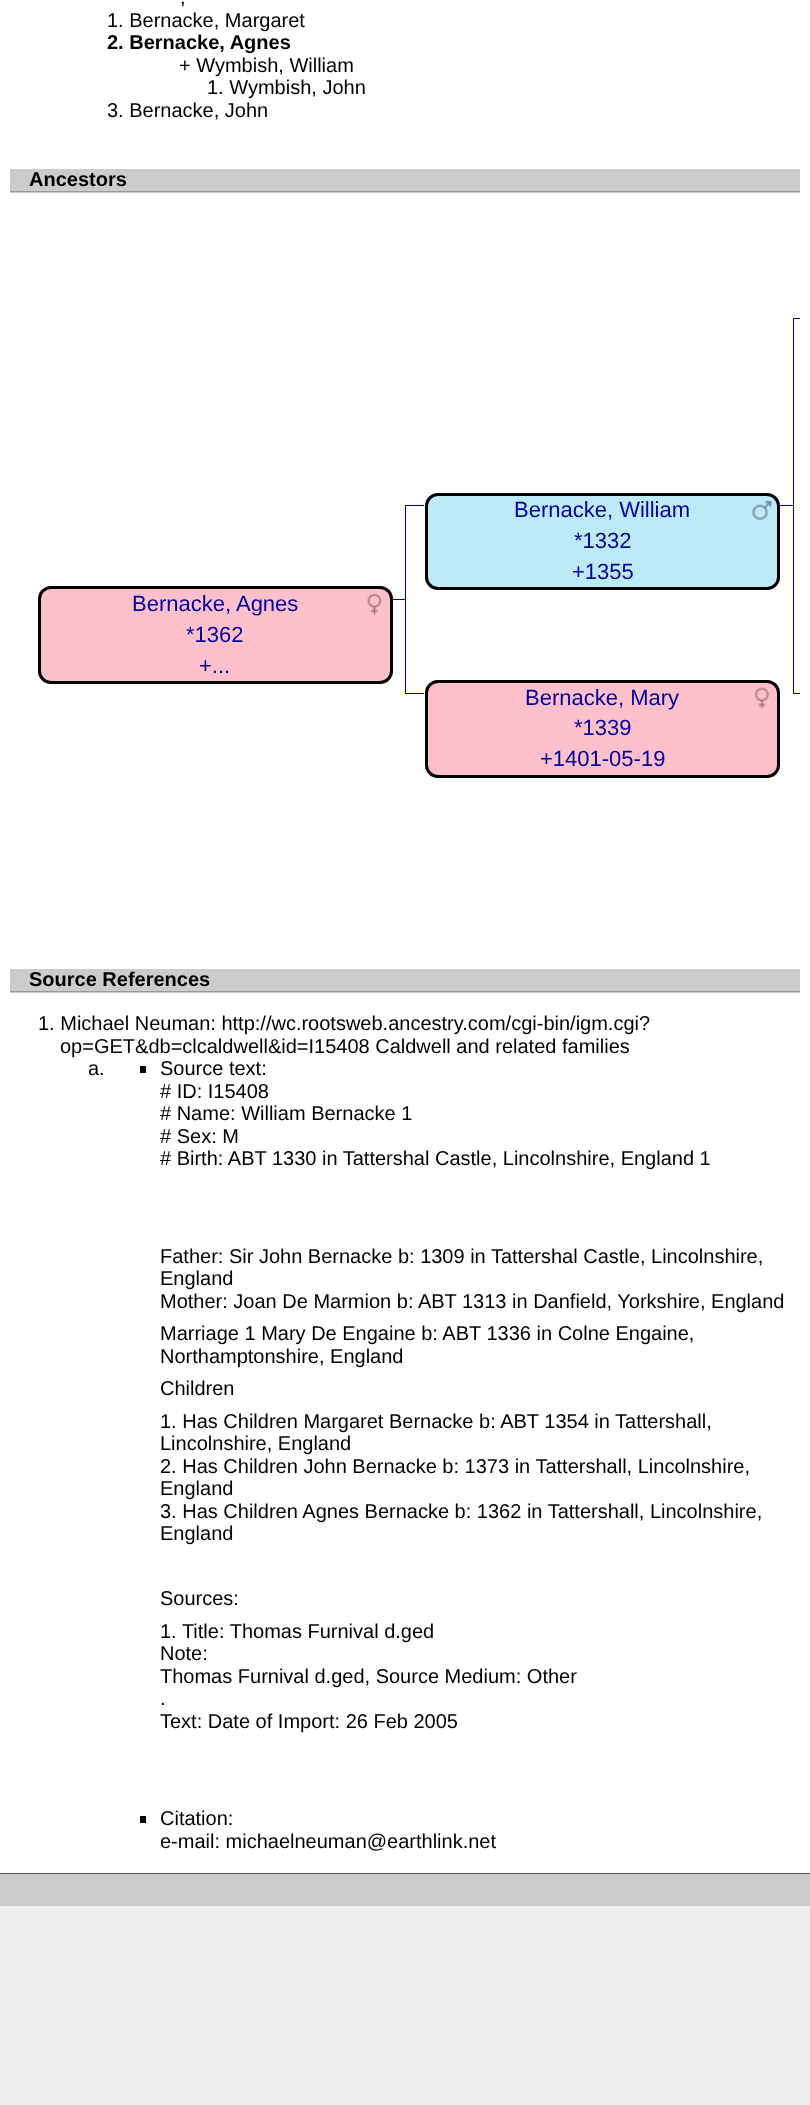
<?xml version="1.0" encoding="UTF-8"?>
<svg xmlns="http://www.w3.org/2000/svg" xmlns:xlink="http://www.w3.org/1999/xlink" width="810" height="2105">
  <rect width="100%" height="100%" fill="#ffffff" />
  <rect x="10" y="169" width="790" height="24" fill="#cccccc" />
  <rect x="10" y="191" width="790" height="1" fill="#999999" />
  <rect x="793" y="318" width="7" height="1" fill="#00029d" />
  <rect x="793" y="318" width="1" height="188" fill="#00029d" />
  <rect x="405" y="505" width="19" height="1" fill="#00029d" />
  <rect x="774" y="505" width="19" height="1" fill="#00029d" />
  <rect x="425" y="493" width="355" height="97" rx="13" fill="#bceaf6" />
  <image x="752" y="500" width="20" height="20" xlink:href="image1.png" />
  <rect x="426.5" y="494.5" width="352" height="94" rx="11.5" fill="none" stroke="#000000" stroke-width="3" />
  <rect x="386" y="599" width="19" height="1" fill="#00029d" />
  <rect x="38" y="586" width="355" height="98" rx="13" fill="#ffc0cb" />
  <image x="367" y="593" width="15" height="22" xlink:href="image2.png" />
  <rect x="39.5" y="587.5" width="352" height="95" rx="11.5" fill="none" stroke="#000000" stroke-width="3" />
  <rect x="405" y="505" width="1" height="95" fill="#00029d" />
  <rect x="793" y="693" width="7" height="1" fill="#00029d" />
  <rect x="793" y="505" width="1" height="189" fill="#00029d" />
  <rect x="405" y="693" width="19" height="1" fill="#00029d" />
  <rect x="405" y="599" width="1" height="95" fill="#00029d" />
  <rect x="425" y="680" width="355" height="98" rx="13" fill="#ffc0cb" />
  <image x="755" y="687" width="14" height="22" xlink:href="image3.png" />
  <rect x="426.5" y="681.5" width="352" height="95" rx="11.5" fill="none" stroke="#000000" stroke-width="3" />
  <rect x="10" y="969" width="790" height="24" fill="#cccccc" />
  <rect x="10" y="991" width="790" height="1" fill="#999999" />
  <rect x="140" y="1066" width="6" height="7" fill="#000000" />
  <rect x="140" y="1816" width="6" height="7" fill="#000000" />
  <rect y="1874" width="810" height="32" fill="#cccccc" />
  <rect y="1873" width="810" height="1" fill="#555555" />
  <rect y="1906" width="810" height="199" fill="#eeeeee" />
  <text x="180" y="4" style="font-family: Liberation Sans; font-size: 20px; fill: #000000">,</text>
  <text x="107" y="27" style="font-family: Liberation Sans; font-size: 20px; fill: #000000">1. Bernacke, Margaret</text>
  <text x="107" y="49" style="font-family: Liberation Sans; font-size: 20px; font-weight: bold; fill: #000000">2. Bernacke, Agnes</text>
  <text x="179" y="72" style="font-family: Liberation Sans; font-size: 20px; fill: #000000">+ Wymbish, William</text>
  <text x="207" y="94" style="font-family: Liberation Sans; font-size: 20px; fill: #000000">1. Wymbish, John</text>
  <text x="107" y="117" style="font-family: Liberation Sans; font-size: 20px; fill: #000000">3. Bernacke, John</text>
  <text x="29" y="186" style="font-family: Liberation Sans; font-size: 20px; font-weight: bold; fill: #000000">Ancestors</text>
  <text x="514" y="517" style="font-family: Liberation Sans; font-size: 22px; fill: #00029d">Bernacke, William</text>
  <text x="574" y="548" style="font-family: Liberation Sans; font-size: 22px; fill: #00029d">*1332</text>
  <text x="572" y="579" style="font-family: Liberation Sans; font-size: 22px; fill: #00029d">+1355</text>
  <text x="132" y="611" style="font-family: Liberation Sans; font-size: 22px; fill: #00029d">Bernacke, Agnes</text>
  <text x="186" y="642" style="font-family: Liberation Sans; font-size: 22px; fill: #00029d">*1362</text>
  <text x="199" y="673" style="font-family: Liberation Sans; font-size: 22px; fill: #00029d">+...</text>
  <text x="525" y="705" style="font-family: Liberation Sans; font-size: 22px; fill: #00029d">Bernacke, Mary</text>
  <text x="574" y="735" style="font-family: Liberation Sans; font-size: 22px; fill: #00029d">*1339</text>
  <text x="540" y="766" style="font-family: Liberation Sans; font-size: 22px; fill: #00029d">+1401-05-19</text>
  <text x="29" y="986" style="font-family: Liberation Sans; font-size: 20px; font-weight: bold; fill: #000000">Source References</text>
  <text x="38" y="1030" style="font-family: Liberation Sans; font-size: 20px; fill: #000000">1. Michael Neuman: http://wc.rootsweb.ancestry.com/cgi-bin/igm.cgi?</text>
  <text x="60" y="1053" style="font-family: Liberation Sans; font-size: 20px; fill: #000000">op=GET&amp;db=clcaldwell&amp;id=I15408 Caldwell and related families</text>
  <text x="88" y="1075" style="font-family: Liberation Sans; font-size: 20px; fill: #000000">a.</text>
  <text x="160" y="1075" style="font-family: Liberation Sans; font-size: 20px; fill: #000000">Source text:</text>
  <text x="160" y="1098" style="font-family: Liberation Sans; font-size: 20px; fill: #000000"># ID: I15408</text>
  <text x="160" y="1120" style="font-family: Liberation Sans; font-size: 20px; fill: #000000"># Name: William Bernacke 1</text>
  <text x="160" y="1143" style="font-family: Liberation Sans; font-size: 20px; fill: #000000"># Sex: M</text>
  <text x="160" y="1165" style="font-family: Liberation Sans; font-size: 20px; fill: #000000"># Birth: ABT 1330 in Tattershal Castle, Lincolnshire, England 1</text>
  <text x="160" y="1263" style="font-family: Liberation Sans; font-size: 20px; fill: #000000">Father: Sir John Bernacke b: 1309 in Tattershal Castle, Lincolnshire,</text>
  <text x="160" y="1285" style="font-family: Liberation Sans; font-size: 20px; fill: #000000">England</text>
  <text x="160" y="1308" style="font-family: Liberation Sans; font-size: 20px; fill: #000000">Mother: Joan De Marmion b: ABT 1313 in Danfield, Yorkshire, England</text>
  <text x="160" y="1340" style="font-family: Liberation Sans; font-size: 20px; fill: #000000">Marriage 1 Mary De Engaine b: ABT 1336 in Colne Engaine,</text>
  <text x="160" y="1363" style="font-family: Liberation Sans; font-size: 20px; fill: #000000">Northamptonshire, England</text>
  <text x="160" y="1395" style="font-family: Liberation Sans; font-size: 20px; fill: #000000">Children</text>
  <text x="160" y="1428" style="font-family: Liberation Sans; font-size: 20px; fill: #000000">1. Has Children Margaret Bernacke b: ABT 1354 in Tattershall,</text>
  <text x="160" y="1450" style="font-family: Liberation Sans; font-size: 20px; fill: #000000">Lincolnshire, England</text>
  <text x="160" y="1473" style="font-family: Liberation Sans; font-size: 20px; fill: #000000">2. Has Children John Bernacke b: 1373 in Tattershall, Lincolnshire,</text>
  <text x="160" y="1495" style="font-family: Liberation Sans; font-size: 20px; fill: #000000">England</text>
  <text x="160" y="1518" style="font-family: Liberation Sans; font-size: 20px; fill: #000000">3. Has Children Agnes Bernacke b: 1362 in Tattershall, Lincolnshire,</text>
  <text x="160" y="1540" style="font-family: Liberation Sans; font-size: 20px; fill: #000000">England</text>
  <text x="160" y="1605" style="font-family: Liberation Sans; font-size: 20px; fill: #000000">Sources:</text>
  <text x="160" y="1638" style="font-family: Liberation Sans; font-size: 20px; fill: #000000">1. Title: Thomas Furnival d.ged</text>
  <text x="160" y="1660" style="font-family: Liberation Sans; font-size: 20px; fill: #000000">Note:</text>
  <text x="160" y="1683" style="font-family: Liberation Sans; font-size: 20px; fill: #000000">Thomas Furnival d.ged, Source Medium: Other</text>
  <text x="160" y="1705" style="font-family: Liberation Sans; font-size: 20px; fill: #000000">.</text>
  <text x="160" y="1728" style="font-family: Liberation Sans; font-size: 20px; fill: #000000">Text: Date of Import: 26 Feb 2005</text>
  <text x="160" y="1825" style="font-family: Liberation Sans; font-size: 20px; fill: #000000">Citation:</text>
  <text x="160" y="1848" style="font-family: Liberation Sans; font-size: 20px; fill: #000000">e-mail: michaelneuman@earthlink.net</text>
</svg>
